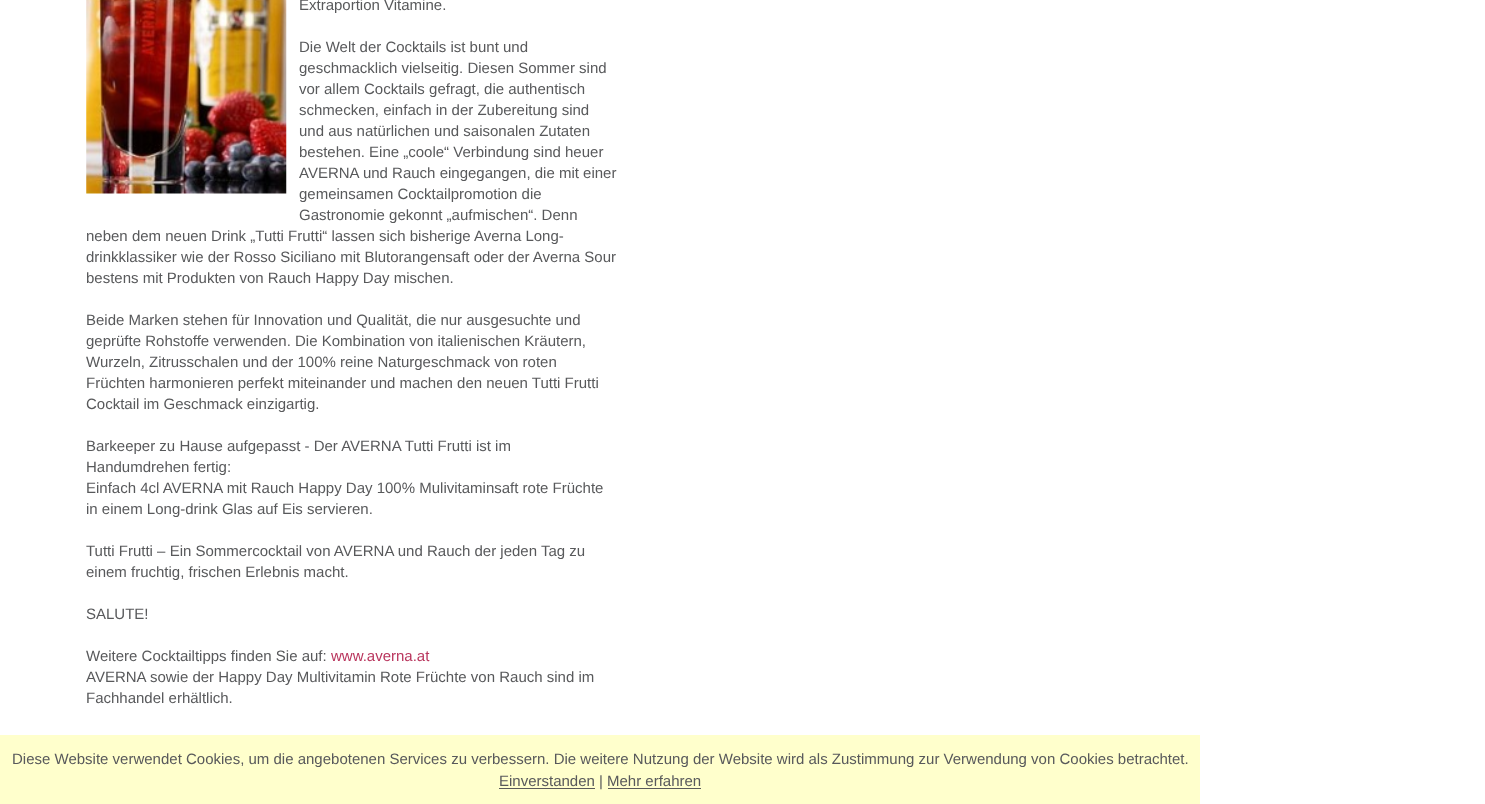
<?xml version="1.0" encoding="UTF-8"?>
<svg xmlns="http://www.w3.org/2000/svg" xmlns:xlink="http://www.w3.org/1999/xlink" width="1485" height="804">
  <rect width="100%" height="100%" fill="#ffffff" />
  <image x="86" y="0" width="201" height="194" xlink:href="image1.png" />
  <rect y="735" width="1200" height="69" fill="#ffffcc" />
  <rect x="499" y="788" width="96" height="1" fill="#5a5a5a" />
  <rect x="608" y="788" width="93" height="1" fill="#5a5a5a" />
  <text x="299" y="10" style="font-family: Liberation Sans; font-size: 15px; fill: #58595b">Extraportion Vitamine.</text>
  <text x="299" y="52" style="font-family: Liberation Sans; font-size: 15px; fill: #58595b">Die Welt der Cocktails ist bunt und</text>
  <text x="299" y="73" style="font-family: Liberation Sans; font-size: 15px; fill: #58595b">geschmacklich vielseitig. Diesen Sommer sind</text>
  <text x="299" y="94" style="font-family: Liberation Sans; font-size: 15px; fill: #58595b">vor allem Cocktails gefragt, die authentisch</text>
  <text x="299" y="115" style="font-family: Liberation Sans; font-size: 15px; fill: #58595b">schmecken, einfach in der Zubereitung sind</text>
  <text x="299" y="136" style="font-family: Liberation Sans; font-size: 15px; fill: #58595b">und aus natürlichen und saisonalen Zutaten</text>
  <text x="299" y="157" style="font-family: Liberation Sans; font-size: 15px; fill: #58595b">bestehen. Eine „coole“ Verbindung sind heuer</text>
  <text x="299" y="178" style="font-family: Liberation Sans; font-size: 15px; fill: #58595b">AVERNA und Rauch eingegangen, die mit einer</text>
  <text x="299" y="199" style="font-family: Liberation Sans; font-size: 15px; fill: #58595b">gemeinsamen Cocktailpromotion die</text>
  <text x="299" y="220" style="font-family: Liberation Sans; font-size: 15px; fill: #58595b">Gastronomie gekonnt „aufmischen“. Denn</text>
  <text x="86" y="241" style="font-family: Liberation Sans; font-size: 15px; fill: #58595b">neben dem neuen Drink „Tutti Frutti“ lassen sich bisherige Averna Long-</text>
  <text x="86" y="262" style="font-family: Liberation Sans; font-size: 15px; fill: #58595b">drinkklassiker wie der Rosso Siciliano mit Blutorangensaft oder der Averna Sour</text>
  <text x="86" y="283" style="font-family: Liberation Sans; font-size: 15px; fill: #58595b">bestens mit Produkten von Rauch Happy Day mischen.</text>
  <text x="86" y="325" style="font-family: Liberation Sans; font-size: 15px; fill: #58595b">Beide Marken stehen für Innovation und Qualität, die nur ausgesuchte und</text>
  <text x="86" y="346" style="font-family: Liberation Sans; font-size: 15px; fill: #58595b">geprüfte Rohstoffe verwenden. Die Kombination von italienischen Kräutern,</text>
  <text x="86" y="367" style="font-family: Liberation Sans; font-size: 15px; fill: #58595b">Wurzeln, Zitrusschalen und der 100% reine Naturgeschmack von roten</text>
  <text x="86" y="388" style="font-family: Liberation Sans; font-size: 15px; fill: #58595b">Früchten harmonieren perfekt miteinander und machen den neuen Tutti Frutti</text>
  <text x="86" y="409" style="font-family: Liberation Sans; font-size: 15px; fill: #58595b">Cocktail im Geschmack einzigartig.</text>
  <text x="86" y="451" style="font-family: Liberation Sans; font-size: 15px; fill: #58595b">Barkeeper zu Hause aufgepasst - Der AVERNA Tutti Frutti ist im</text>
  <text x="86" y="472" style="font-family: Liberation Sans; font-size: 15px; fill: #58595b">Handumdrehen fertig:</text>
  <text x="86" y="493" style="font-family: Liberation Sans; font-size: 15px; fill: #58595b">Einfach 4cl AVERNA mit Rauch Happy Day 100% Mulivitaminsaft rote Früchte</text>
  <text x="86" y="514" style="font-family: Liberation Sans; font-size: 15px; fill: #58595b">in einem Long-drink Glas auf Eis servieren.</text>
  <text x="86" y="556" style="font-family: Liberation Sans; font-size: 15px; fill: #58595b">Tutti Frutti – Ein Sommercocktail von AVERNA und Rauch der jeden Tag zu</text>
  <text x="86" y="577" style="font-family: Liberation Sans; font-size: 15px; fill: #58595b">einem fruchtig, frischen Erlebnis macht.</text>
  <text x="86" y="619" style="font-family: Liberation Sans; font-size: 15px; fill: #58595b">SALUTE!</text>
  <text x="86" y="661" style="font-family: Liberation Sans; font-size: 15px; fill: #58595b">Weitere Cocktailtipps finden Sie auf:</text>
  <text x="331" y="661" style="font-family: Liberation Sans; font-size: 15px; fill: #b9355d">www.averna.at</text>
  <text x="86" y="682" style="font-family: Liberation Sans; font-size: 15px; fill: #58595b">AVERNA sowie der Happy Day Multivitamin Rote Früchte von Rauch sind im</text>
  <text x="86" y="703" style="font-family: Liberation Sans; font-size: 15px; fill: #58595b">Fachhandel erhältlich.</text>
  <text x="12" y="764" style="font-family: Liberation Sans; font-size: 15px; fill: #58595b">Diese Website verwendet Cookies, um die angebotenen Services zu verbessern. Die weitere Nutzung der Website wird als Zustimmung zur Verwendung von Cookies betrachtet.</text>
  <text x="499" y="786" style="font-family: Liberation Sans; font-size: 15px; fill: #58595b">Einverstanden</text>
  <text x="599" y="786" style="font-family: Liberation Sans; font-size: 15px; fill: #58595b">|</text>
  <text x="607" y="786" style="font-family: Liberation Sans; font-size: 15px; fill: #58595b">Mehr erfahren</text>
</svg>
